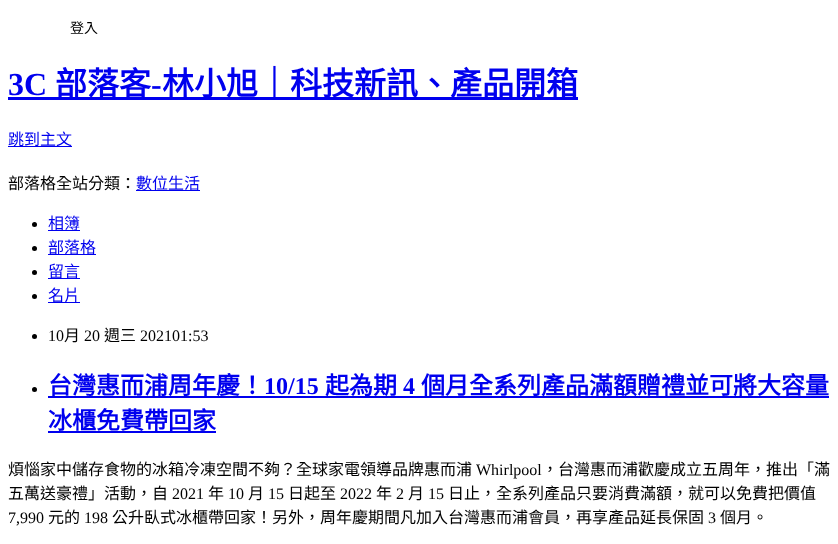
<!DOCTYPE html>
<meta charset="utf-8">
<style>body { margin: 0 } canvas { display: block }</style>
<canvas id="canvas" width="838" height="544"></canvas>
<script type="module">
  const canvas = document.getElementById("canvas");
  const ctx = canvas.getContext("2d");
  ctx.miterLimit = 4;
  ctx.fontKerning = "normal";

  ctx.fillStyle = "#ffffff";
  ctx.fillRect(0, 0, 838, 544);
  ctx.font = "14px Noto Sans CJK TC";
  ctx.fillStyle = "#000000";
  ctx.fillText("登入", 70, 33);
  ctx.font = "bold 32px Liberation Serif";
  ctx.fillStyle = "#0000ee";
  ctx.fillText("3C", 8, 95);
  ctx.fillRect(8, 97, 570, 3);
  ctx.font = "bold 32px Noto Sans CJK TC";
  ctx.fillText("部落客", 55, 95);
  ctx.font = "bold 32px Liberation Serif";
  ctx.fillText("-", 151, 95);
  ctx.font = "bold 32px Noto Sans CJK TC";
  ctx.fillText("林小旭｜科技新訊、產品開箱", 162, 95);
  ctx.fillRect(8, 146, 64, 1);
  ctx.font = "16px Noto Sans CJK TC";
  ctx.fillText("跳到主文", 8, 145);
  ctx.fillStyle = "#000000";
  ctx.fillText("部落格全站分類：", 8, 189);
  ctx.fillStyle = "#0000ee";
  ctx.fillRect(136, 190, 64, 1);
  ctx.fillText("數位生活", 136, 189);
  ctx.fillStyle = "#000000";
  ctx.beginPath();
  ctx.arc(34.5, 224.5, 2.5, 0, Math.PI * 2);
  ctx.fill();
  ctx.fillStyle = "#0000ee";
  ctx.fillRect(48, 230, 32, 1);
  ctx.fillText("相簿", 48, 229);
  ctx.fillStyle = "#000000";
  ctx.beginPath();
  ctx.arc(34.5, 248.5, 2.5, 0, Math.PI * 2);
  ctx.fill();
  ctx.fillStyle = "#0000ee";
  ctx.fillRect(48, 254, 48, 1);
  ctx.fillText("部落格", 48, 253);
  ctx.fillStyle = "#000000";
  ctx.beginPath();
  ctx.arc(34.5, 272.5, 2.5, 0, Math.PI * 2);
  ctx.fill();
  ctx.fillStyle = "#0000ee";
  ctx.fillRect(48, 278, 32, 1);
  ctx.fillText("留言", 48, 277);
  ctx.fillStyle = "#000000";
  ctx.beginPath();
  ctx.arc(34.5, 296.5, 2.5, 0, Math.PI * 2);
  ctx.fill();
  ctx.fillStyle = "#0000ee";
  ctx.fillRect(48, 302, 32, 1);
  ctx.fillText("名片", 48, 301);
  ctx.fillStyle = "#000000";
  ctx.beginPath();
  ctx.arc(34.5, 336.5, 2.5, 0, Math.PI * 2);
  ctx.fill();
  ctx.font = "16px Liberation Serif";
  ctx.fillText("10", 48, 341);
  ctx.font = "16px Noto Sans CJK TC";
  ctx.fillText("月", 64, 341);
  ctx.font = "16px Liberation Serif";
  ctx.fillText("20", 84, 341);
  ctx.font = "16px Noto Sans CJK TC";
  ctx.fillText("週三", 104, 341);
  ctx.font = "16px Liberation Serif";
  ctx.fillText("202101:53", 140, 341);
  ctx.beginPath();
  ctx.arc(34.5, 389.5, 2.5, 0, Math.PI * 2);
  ctx.fill();
  ctx.fillStyle = "#0000ee";
  ctx.fillRect(48, 396, 781, 2);
  ctx.font = "bold 24px Noto Sans CJK TC";
  ctx.fillText("台灣惠而浦周年慶！", 48, 394);
  ctx.font = "bold 24px Liberation Serif";
  ctx.fillText("10/15", 264, 394);
  ctx.font = "bold 24px Noto Sans CJK TC";
  ctx.fillText("起為期", 325, 394);
  ctx.font = "bold 24px Liberation Serif";
  ctx.fillText("4", 403, 394);
  ctx.font = "bold 24px Noto Sans CJK TC";
  ctx.fillText("個月全系列產品滿額贈禮並可將大容量", 421, 394);
  ctx.fillText("冰櫃免費帶回家", 48, 429);
  ctx.fillRect(48, 431, 168, 2);
  ctx.font = "16px Noto Sans CJK TC";
  ctx.fillStyle = "#000000";
  ctx.fillText("煩惱家中儲存食物的冰箱冷凍空間不夠？全球家電領導品牌惠而浦", 8, 475);
  ctx.font = "16px Liberation Serif";
  ctx.fillText("Whirlpool", 476, 475);
  ctx.font = "16px Noto Sans CJK TC";
  ctx.fillText("，台灣惠而浦歡慶成立五周年，推出「滿", 542, 475);
  ctx.fillText("五萬送豪禮」活動，自", 8, 499);
  ctx.font = "16px Liberation Serif";
  ctx.fillText("2021", 172, 499);
  ctx.font = "16px Noto Sans CJK TC";
  ctx.fillText("年", 208, 499);
  ctx.font = "16px Liberation Serif";
  ctx.fillText("10", 228, 499);
  ctx.font = "16px Noto Sans CJK TC";
  ctx.fillText("月", 248, 499);
  ctx.font = "16px Liberation Serif";
  ctx.fillText("15", 268, 499);
  ctx.font = "16px Noto Sans CJK TC";
  ctx.fillText("日起至", 288, 499);
  ctx.font = "16px Liberation Serif";
  ctx.fillText("2022", 340, 499);
  ctx.font = "16px Noto Sans CJK TC";
  ctx.fillText("年", 376, 499);
  ctx.font = "16px Liberation Serif";
  ctx.fillText("2", 396, 499);
  ctx.font = "16px Noto Sans CJK TC";
  ctx.fillText("月", 408, 499);
  ctx.font = "16px Liberation Serif";
  ctx.fillText("15", 428, 499);
  ctx.font = "16px Noto Sans CJK TC";
  ctx.fillText("日止，全系列產品只要消費滿額，就可以免費把價值", 448, 499);
  ctx.font = "16px Liberation Serif";
  ctx.fillText("7,990", 8, 523);
  ctx.font = "16px Noto Sans CJK TC";
  ctx.fillText("元的", 48, 523);
  ctx.font = "16px Liberation Serif";
  ctx.fillText("198", 84, 523);
  ctx.font = "16px Noto Sans CJK TC";
  ctx.fillText("公升臥式冰櫃帶回家！另外，周年慶期間凡加入台灣惠而浦會員，再享產品延長保固", 112, 523);
  ctx.font = "16px Liberation Serif";
  ctx.fillText("3", 708, 523);
  ctx.font = "16px Noto Sans CJK TC";
  ctx.fillText("個月。", 720, 523);
</script>
